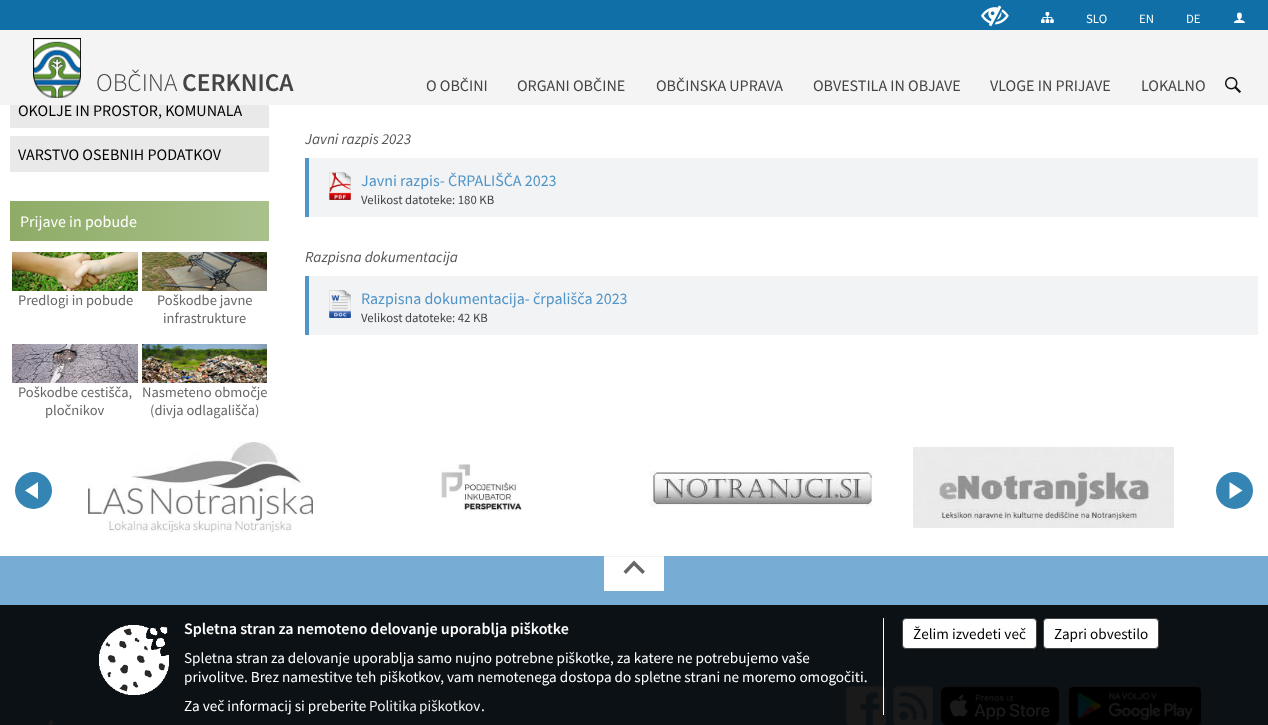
<!DOCTYPE html>
<meta charset="utf-8">
<style>body { margin: 0 } canvas { display: block }</style>
<canvas id="canvas" width="1268" height="725"></canvas>
<script type="module">
  const canvas = document.getElementById("canvas");
  const ctx = canvas.getContext("2d");
  ctx.miterLimit = 4;
  ctx.fontKerning = "normal";
  async function loadImage(src) {
    const img = new Image();
    img.src = src;
    await img.decode();
    return img;
  }
  let gradient;

  ctx.fillStyle = "#ffffff";
  ctx.fillRect(0, 0, 1268, 725);
  ctx.fillStyle = "#f4f4f4";
  ctx.fillRect(0, 30, 1268, 75);
  ctx.fillStyle = "#106fa6";
  ctx.fillRect(0, 0, 1268, 30);
  ctx.drawImage(await loadImage("img1.png"), 981, 5, 28, 22);
  ctx.drawImage(await loadImage("img2.png"), 1041, 12, 13, 11);
  ctx.font = "12.75px Source Sans Pro";
  ctx.fillStyle = "#ffffff";
  ctx.fillText("SLO", 1086, 23);
  ctx.fillText("EN", 1139, 23);
  ctx.fillText("DE", 1186, 23);
  ctx.drawImage(await loadImage("img3.png"), 1233, 12, 12, 11);
  ctx.drawImage(await loadImage("img4.png"), 33, 38, 48, 60);
  ctx.font = "300 25.5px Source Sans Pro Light";
  ctx.fillStyle = "#444444";
  ctx.fillText("OBČINA", 96, 91);
  ctx.font = "600 25.5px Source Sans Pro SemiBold";
  ctx.fillText("CERKNICA", 182, 91);
  ctx.font = "16px Source Sans Pro";
  ctx.fillText("O OBČINI", 426, 91);
  ctx.fillText("ORGANI OBČINE", 517, 91);
  ctx.fillText("OBČINSKA UPRAVA", 656, 91);
  ctx.fillText("OBVESTILA IN OBJAVE", 813, 91);
  ctx.fillText("VLOGE IN PRIJAVE", 990, 91);
  ctx.fillText("LOKALNO", 1141, 91);
  ctx.drawImage(await loadImage("img5.png"), 1225, 77, 16, 16);
  ctx.fillStyle = "#e9e9e9";
  ctx.fillRect(10, 105, 259, 23);
  ctx.fillStyle = "#000000";
  ctx.fillText("OKOLJE IN PROSTOR, KOMUNALA", 18, 116);
  ctx.fillStyle = "#e9e9e9";
  ctx.fillRect(10, 136, 259, 36);
  ctx.fillStyle = "#000000";
  ctx.fillText("VARSTVO OSEBNIH PODATKOV", 18, 160);
  gradient = ctx.createLinearGradient(10, 221, 269, 221);
  gradient.addColorStop(0, "#8eac66");
  gradient.addColorStop(1, "#aac18c");
  ctx.fillStyle = gradient;
  ctx.fillRect(10, 201, 259, 40);
  ctx.fillStyle = "#ffffff";
  ctx.fillText("Prijave in pobude", 20, 227);
  ctx.drawImage(await loadImage("img6.png"), 12, 252, 126, 39);
  ctx.font = "14.5px Source Sans Pro";
  ctx.fillStyle = "#666666";
  ctx.fillText("Predlogi in pobude", 18, 305);
  ctx.drawImage(await loadImage("img7.png"), 142, 252, 125, 39);
  ctx.fillText("Poškodbe javne", 157, 305);
  ctx.fillText("infrastrukture", 163, 323);
  ctx.drawImage(await loadImage("img8.png"), 12, 344, 126, 39);
  ctx.fillText("Poškodbe cestišča,", 18, 397);
  ctx.fillText("pločnikov", 45, 415);
  ctx.drawImage(await loadImage("img9.png"), 142, 344, 125, 39);
  ctx.fillText("Nasmeteno območje", 142, 397);
  ctx.fillText("(divja odlagališča)", 150, 415);
  ctx.font = "italic 15.2px Source Sans Pro";
  ctx.fillStyle = "#555555";
  ctx.fillText("Javni razpis 2023", 305, 144);
  ctx.fillStyle = "#f2f3f5";
  ctx.fillRect(309, 158, 949, 59);
  ctx.fillStyle = "#5094c8";
  ctx.fillRect(305, 158, 4, 59);
  ctx.drawImage(await loadImage("img10.png"), 329, 172, 22, 28);
  ctx.font = "16px Source Sans Pro";
  ctx.fillText("Javni razpis- ČRPALIŠČA 2023", 361, 186);
  ctx.font = "12.75px Source Sans Pro";
  ctx.fillStyle = "#444444";
  ctx.fillText("Velikost datoteke: 180 KB", 361, 204);
  ctx.font = "italic 15.2px Source Sans Pro";
  ctx.fillStyle = "#555555";
  ctx.fillText("Razpisna dokumentacija", 305, 262);
  ctx.fillStyle = "#f2f3f5";
  ctx.fillRect(309, 276, 949, 59);
  ctx.fillStyle = "#5094c8";
  ctx.fillRect(305, 276, 4, 59);
  ctx.drawImage(await loadImage("img11.png"), 329, 290, 22, 28);
  ctx.font = "16px Source Sans Pro";
  ctx.fillText("Razpisna dokumentacija- črpališča 2023", 361, 304);
  ctx.font = "12.75px Source Sans Pro";
  ctx.fillStyle = "#444444";
  ctx.fillText("Velikost datoteke: 42 KB", 361, 322);
  ctx.fillStyle = "#3485b3";
  ctx.beginPath();
  ctx.arc(33.5, 490.5, 18.5, 0, Math.PI * 2);
  ctx.fill();
  ctx.fillStyle = "#ffffff";
  ctx.beginPath();
  ctx.moveTo(38, 499);
  ctx.lineTo(25, 490.5);
  ctx.lineTo(38, 482);
  ctx.closePath();
  ctx.fill();
  ctx.drawImage(await loadImage("img12.png"), 88, 442, 225, 90);
  ctx.drawImage(await loadImage("img13.png"), 441, 464, 81, 47);
  ctx.drawImage(await loadImage("img14.png"), 649, 471, 224, 36);
  ctx.drawImage(await loadImage("img15.png"), 913, 447, 261, 81);
  ctx.fillStyle = "#3485b3";
  ctx.beginPath();
  ctx.arc(1234.5, 490.5, 18.5, 0, Math.PI * 2);
  ctx.fill();
  ctx.fillStyle = "#ffffff";
  ctx.beginPath();
  ctx.moveTo(1229.5, 482);
  ctx.lineTo(1242.5, 490.5);
  ctx.lineTo(1229.5, 499);
  ctx.closePath();
  ctx.fill();
  ctx.fillStyle = "#77acd4";
  ctx.fillRect(0, 556, 1268, 49);
  ctx.fillStyle = "#0c1115";
  ctx.fillRect(0, 605, 1268, 120);
  ctx.fillStyle = "#ffffff";
  ctx.fillRect(604, 557, 60, 34);
  ctx.fillStyle = "#f2f2f2";
  ctx.fillRect(604, 556, 60, 1);
  ctx.fillStyle = "#666666";
  ctx.beginPath();
  ctx.moveTo(626, 574);
  ctx.lineTo(623.5, 571.5);
  ctx.lineTo(634, 560.5);
  ctx.lineTo(645, 571.5);
  ctx.lineTo(642.5, 574);
  ctx.lineTo(634, 565.5);
  ctx.closePath();
  ctx.fill();
  ctx.drawImage(await loadImage("img16.png"), 48, 719, 6, 6);
  ctx.drawImage(await loadImage("img17.png"), 846, 686, 40, 39);
  ctx.drawImage(await loadImage("img18.png"), 893, 686, 40, 39);
  ctx.drawImage(await loadImage("img19.png"), 940, 686, 120, 39);
  ctx.drawImage(await loadImage("img20.png"), 1068, 686, 134, 39);
  ctx.drawImage(await loadImage("img21.png"), 99, 625, 70, 70);
  ctx.fillStyle = "#ffffff";
  ctx.fillRect(883, 618, 1, 97);
  ctx.font = "600 16px Source Sans Pro SemiBold";
  ctx.fillText("Spletna stran za nemoteno delovanje uporablja piškotke", 184, 634);
  ctx.font = "15.2px Source Sans Pro";
  ctx.fillText("Spletna stran za delovanje uporablja samo nujno potrebne piškotke, za katere ne potrebujemo vaše", 184, 663);
  ctx.fillText("privolitve. Brez namestitve teh piškotkov, vam nemotenega dostopa do spletne strani ne moremo omogočiti.", 184, 682);
  ctx.fillText("Za več informacij si preberite", 184, 711);
  ctx.wordSpacing = "-1px";
  ctx.fillStyle = "#eeeeee";
  ctx.fillText("Politika piškotkov", 369, 711);
  ctx.wordSpacing = "0px";
  ctx.fillStyle = "#ffffff";
  ctx.fillText(".", 481, 711);
  ctx.beginPath();
  ctx.roundRect(902.5, 618.5, 134, 30, 3.5);
  ctx.fill();
  ctx.strokeStyle = "#444444";
  ctx.stroke();
  ctx.fillStyle = "#000000";
  ctx.fillText("Želim izvedeti več", 913, 639);
  ctx.fillStyle = "#ffffff";
  ctx.beginPath();
  ctx.roundRect(1043.5, 618.5, 115, 30, 3.5);
  ctx.fill();
  ctx.stroke();
  ctx.fillStyle = "#000000";
  ctx.fillText("Zapri obvestilo", 1054, 639);
</script>
